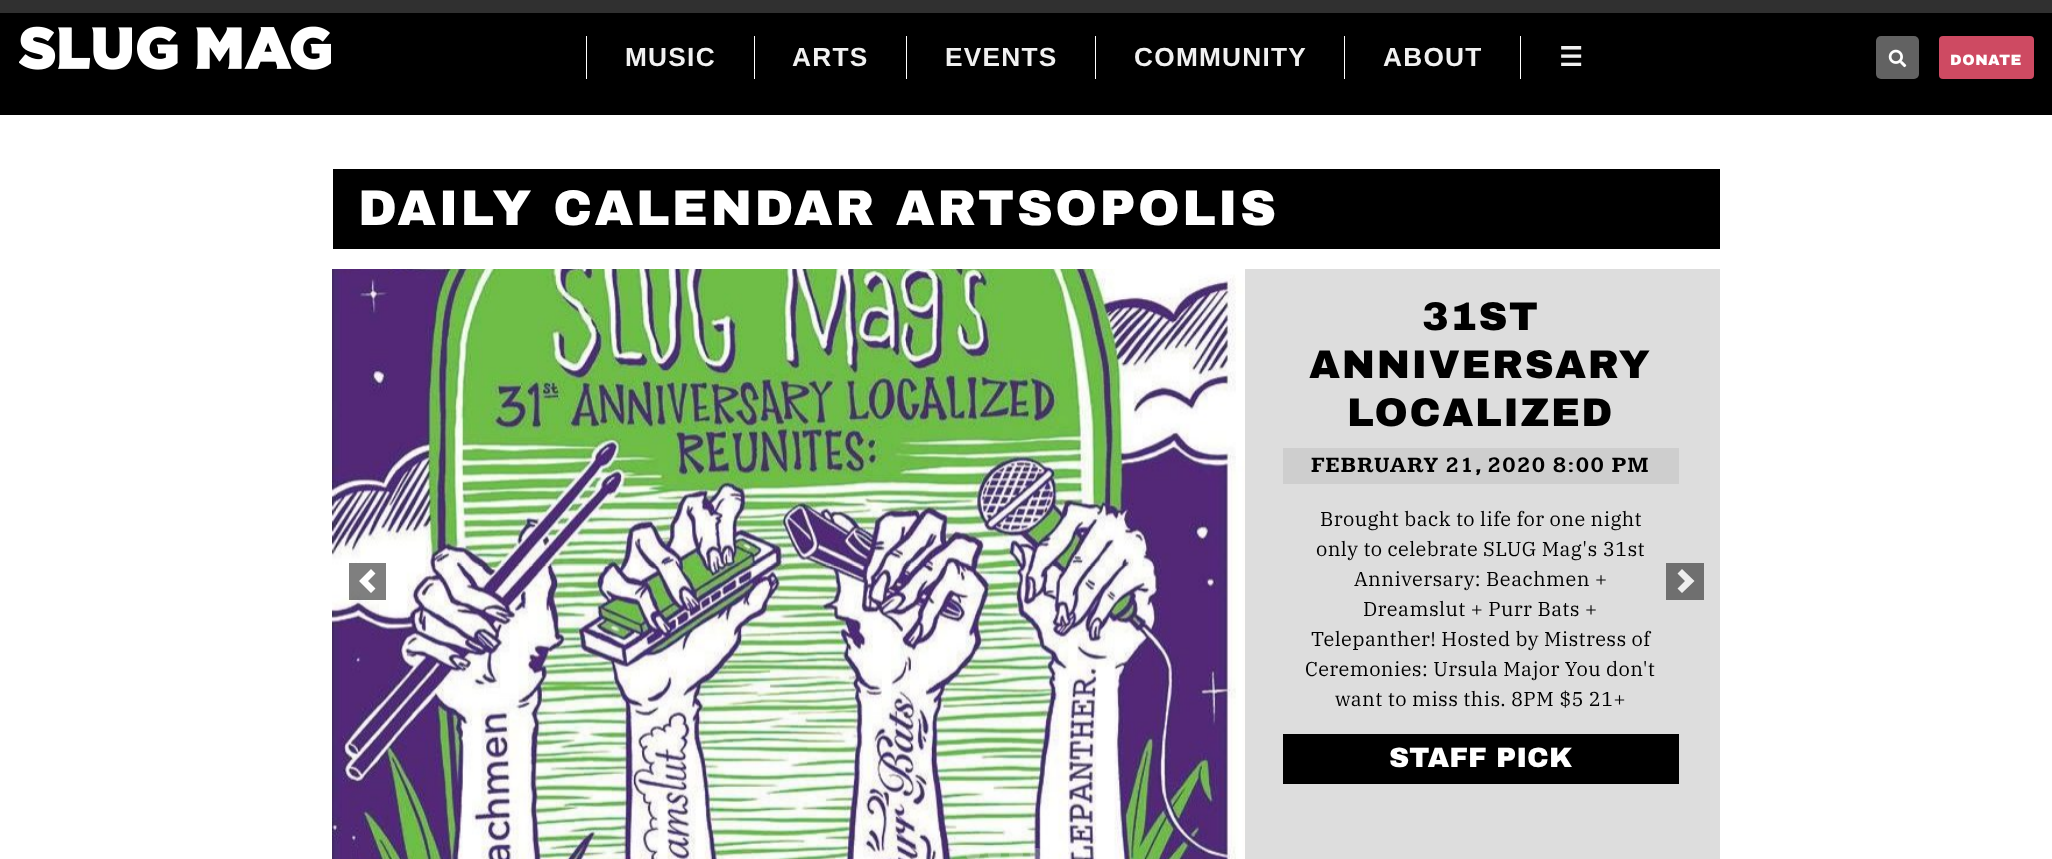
<!DOCTYPE html>
<meta charset="utf-8">
<style>body { margin: 0 } canvas { display: block }</style>
<canvas id="canvas" width="2052" height="859"></canvas>
<script type="module">
  const canvas = document.getElementById("canvas");
  const ctx = canvas.getContext("2d");
  ctx.miterLimit = 4;
  ctx.fontKerning = "normal";
  async function loadImage(src) {
    const img = new Image();
    img.src = src;
    await img.decode();
    return img;
  }

  ctx.fillStyle = "#ffffff";
  ctx.fillRect(0, 0, 2052, 859);
  ctx.fillStyle = "#303030";
  ctx.fillRect(0, 0, 2052, 13);
  ctx.fillStyle = "#000000";
  ctx.fillRect(0, 13, 2052, 102);
  ctx.drawImage(await loadImage("img1.png"), 19, 26, 312, 44);
  ctx.fillStyle = "#ffffff";
  ctx.fillRect(586, 36, 1, 43);
  ctx.letterSpacing = "1.25px";
  ctx.font = "bold 26.25px Liberation Sans";
  ctx.fillStyle = "#f1f1f1";
  ctx.fillText("MUSIC", 625, 66);
  ctx.fillStyle = "#ffffff";
  ctx.fillRect(754, 36, 1, 43);
  ctx.fillStyle = "#f1f1f1";
  ctx.fillText("ARTS", 792, 66);
  ctx.fillStyle = "#ffffff";
  ctx.fillRect(906, 36, 1, 43);
  ctx.fillStyle = "#f1f1f1";
  ctx.fillText("EVENTS", 945, 66);
  ctx.fillStyle = "#ffffff";
  ctx.fillRect(1095, 36, 1, 43);
  ctx.fillStyle = "#f1f1f1";
  ctx.fillText("COMMUNITY", 1134, 66);
  ctx.fillStyle = "#ffffff";
  ctx.fillRect(1344, 36, 1, 43);
  ctx.fillStyle = "#f1f1f1";
  ctx.fillText("ABOUT", 1383, 66);
  ctx.fillStyle = "#ffffff";
  ctx.fillRect(1520, 36, 1, 43);
  ctx.font = "bold 26.25px DejaVu Sans";
  ctx.fillStyle = "#f1f1f1";
  ctx.fillText("☰", 1559, 66);
  ctx.fillStyle = "#626262";
  ctx.beginPath();
  ctx.roundRect(1876, 36, 43, 43, 5);
  ctx.fill();
  ctx.drawImage(await loadImage("img2.png"), 1888, 49, 19, 19);
  ctx.fillStyle = "#ce4a62";
  ctx.beginPath();
  ctx.roundRect(1939, 36, 95, 43, 4);
  ctx.fill();
  ctx.letterSpacing = "0.5px";
  ctx.font = "900 15px Archivo Black";
  ctx.fillStyle = "#ffffff";
  ctx.fillText("DONATE", 1950, 65);
  ctx.fillStyle = "#000000";
  ctx.fillRect(333, 169, 1387, 80);
  ctx.letterSpacing = "2.5px";
  ctx.font = "900 50px Archivo Black";
  ctx.fillStyle = "#ffffff";
  ctx.fillText("DAILY CALENDAR ARTSOPOLIS", 358, 225);
  ctx.fillStyle = "#dddddd";
  ctx.fillRect(1245, 269, 475, 590);
  ctx.drawImage(await loadImage("img3.png"), 332, 269, 913, 590);
  ctx.fillStyle = "rgba(0, 0, 0, 0.5)";
  ctx.fillRect(349, 563, 37, 37);
  ctx.fillStyle = "#ffffff";
  ctx.beginPath();
  ctx.moveTo(371, 569);
  ctx.lineTo(359, 581);
  ctx.lineTo(371, 593);
  ctx.lineTo(375.5, 588.5);
  ctx.lineTo(368, 581);
  ctx.lineTo(375.5, 573.5);
  ctx.closePath();
  ctx.fill();
  ctx.letterSpacing = "1.6px";
  ctx.font = "900 40px Archivo Black";
  ctx.fillStyle = "#000000";
  ctx.fillText("31ST", 1422, 330);
  ctx.fillText("ANNIVERSARY", 1309, 378);
  ctx.fillText("LOCALIZED", 1347, 426);
  ctx.fillStyle = "#cecece";
  ctx.fillRect(1283, 448, 396, 36);
  ctx.letterSpacing = "0.9px";
  ctx.font = "bold 22.5px Kameron";
  ctx.fillStyle = "#000000";
  ctx.fillText("FEBRUARY 21, 2020 8:00 PM", 1311, 472);
  ctx.letterSpacing = "0.4px";
  ctx.font = "20px IBM Plex Serif";
  ctx.fillText("Brought back to life for one night", 1320, 526);
  ctx.fillText("only to celebrate SLUG Mag's 31st", 1316, 556);
  ctx.fillText("Anniversary: Beachmen +", 1354, 586);
  ctx.fillText("Dreamslut + Purr Bats +", 1363, 616);
  ctx.fillText("Telepanther! Hosted by Mistress of", 1311, 646);
  ctx.fillText("Ceremonies: Ursula Major You don't", 1305, 676);
  ctx.fillText("want to miss this. 8PM $5 21+", 1335, 706);
  ctx.fillRect(1283, 734, 396, 50);
  ctx.letterSpacing = "0px";
  ctx.font = "900 28px Archivo Black";
  ctx.fillStyle = "#ffffff";
  ctx.fillText("STAFF PICK", 1389, 767);
  ctx.fillStyle = "#6f6f6f";
  ctx.fillRect(1666, 563, 38, 37);
  ctx.fillStyle = "#eeeeee";
  ctx.beginPath();
  ctx.moveTo(1682, 569);
  ctx.lineTo(1677.5, 573.5);
  ctx.lineTo(1685, 581);
  ctx.lineTo(1677.5, 588.5);
  ctx.lineTo(1682, 593);
  ctx.lineTo(1694.5, 581);
  ctx.closePath();
  ctx.fill();
  ctx.fillStyle = "rgba(255, 255, 255, 0.25)";
  ctx.beginPath();
  ctx.roundRect(966, 848, 14, 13, 6.5);
  ctx.fill();
  ctx.beginPath();
  ctx.arc(994.5, 854.5, 6.5, 0, Math.PI * 2);
  ctx.fill();
  ctx.beginPath();
  ctx.roundRect(1009, 848, 14, 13, 6.5);
  ctx.fill();
  ctx.beginPath();
  ctx.roundRect(1030, 848, 14, 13, 6.5);
  ctx.fill();
  ctx.beginPath();
  ctx.roundRect(1051, 848, 14, 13, 6.5);
  ctx.fill();
  ctx.beginPath();
  ctx.arc(1079.5, 854.5, 6.5, 0, Math.PI * 2);
  ctx.fill();
</script>
